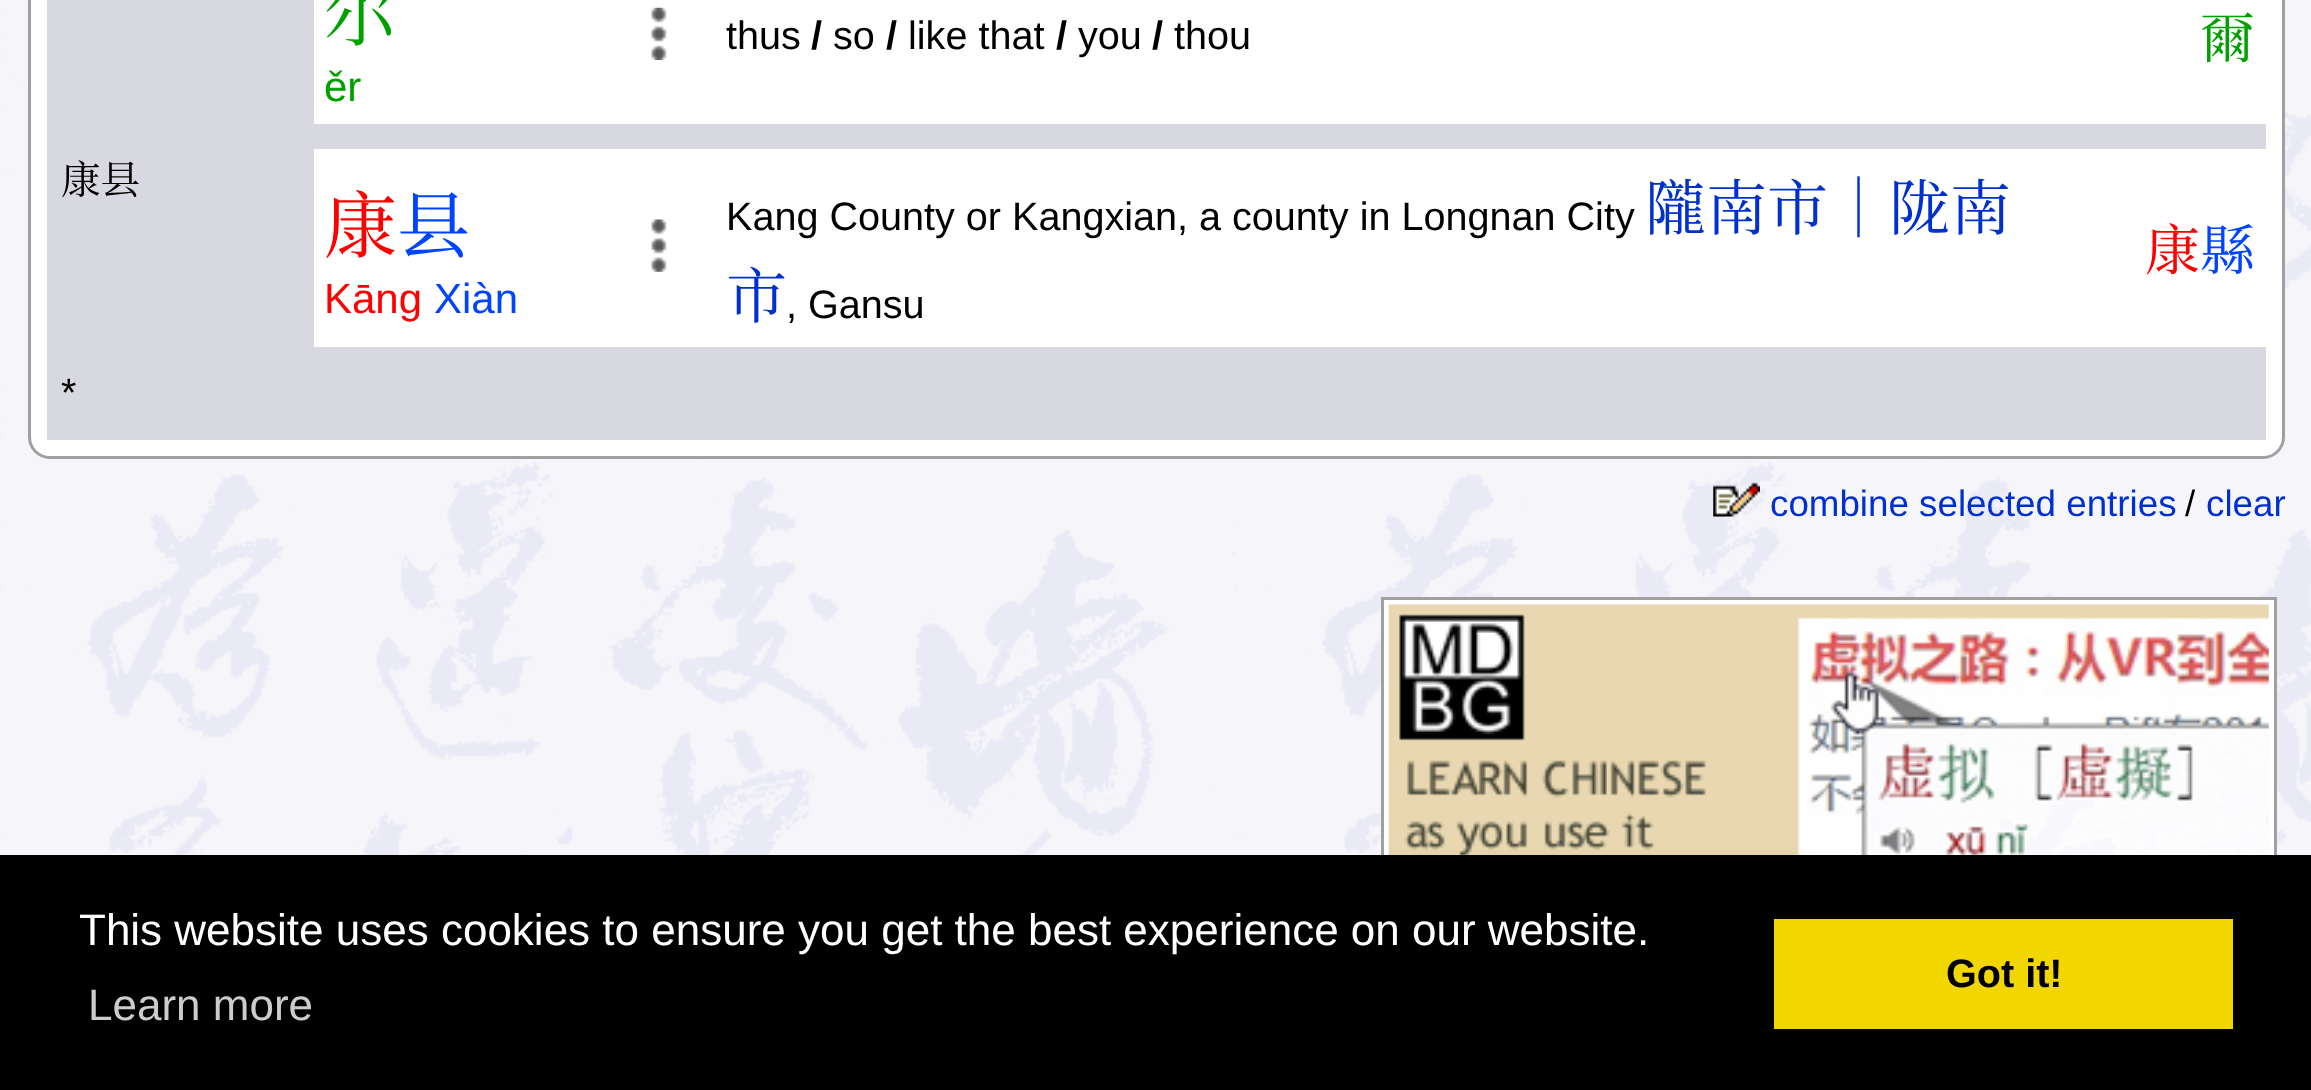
<!DOCTYPE html>
<meta charset="utf-8">
<style>body { margin: 0 } canvas { display: block }</style>
<canvas id="canvas" width="2311" height="1090"></canvas>
<script type="module">
  const canvas = document.getElementById("canvas");
  const ctx = canvas.getContext("2d");
  ctx.miterLimit = 4;
  ctx.fontKerning = "normal";
  async function loadImage(src) {
    const img = new Image();
    img.src = src;
    await img.decode();
    return img;
  }

  ctx.fillStyle = "#ffffff";
  ctx.fillRect(0, 0, 2311, 1090);
  ctx.drawImage(await loadImage("img1.png"), 0, 0, 2311, 855);
  ctx.beginPath();
  ctx.roundRect(29.5, -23.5, 2254, 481, 20.5);
  ctx.fill();
  ctx.strokeStyle = "#a0a0a0";
  ctx.lineWidth = 3;
  ctx.stroke();
  ctx.fillStyle = "#d8d8e0";
  ctx.fillRect(47, 0, 267, 124);
  ctx.font = "73px Noto Serif CJK SC";
  ctx.fillStyle = "#00a000";
  ctx.fillText("尔", 324, 40);
  ctx.font = "42px Liberation Sans";
  ctx.fillText("ěr", 324, 101);
  ctx.drawImage(await loadImage("img2.png"), 651, 7, 16, 53);
  ctx.font = "39.6px Liberation Sans";
  ctx.fillStyle = "#000000";
  ctx.fillText("thus", 726, 49);
  ctx.font = "bold 39.6px Liberation Sans";
  ctx.fillText("/", 811, 49);
  ctx.font = "39.6px Liberation Sans";
  ctx.fillText("so", 833, 49);
  ctx.font = "bold 39.6px Liberation Sans";
  ctx.fillText("/", 886, 49);
  ctx.font = "39.6px Liberation Sans";
  ctx.fillText("like that", 908, 49);
  ctx.font = "bold 39.6px Liberation Sans";
  ctx.fillText("/", 1056, 49);
  ctx.font = "39.6px Liberation Sans";
  ctx.fillText("you", 1078, 49);
  ctx.font = "bold 39.6px Liberation Sans";
  ctx.fillText("/", 1152, 49);
  ctx.font = "39.6px Liberation Sans";
  ctx.fillText("thou", 1174, 49);
  ctx.font = "55px Noto Serif CJK SC";
  ctx.fillStyle = "#00a000";
  ctx.fillText("爾", 2200, 58);
  ctx.fillStyle = "#d8d8e0";
  ctx.fillRect(47, 124, 2219, 25);
  ctx.fillRect(47, 149, 267, 198);
  ctx.font = "39.6px Noto Serif CJK SC";
  ctx.fillStyle = "#000000";
  ctx.fillText("康县", 61, 194);
  ctx.font = "73px Noto Serif CJK SC";
  ctx.fillStyle = "#ff0000";
  ctx.fillText("康", 324, 252);
  ctx.fillStyle = "#0044ff";
  ctx.fillText("县", 397, 252);
  ctx.font = "42px Liberation Sans";
  ctx.fillStyle = "#ff0000";
  ctx.fillText("Kāng", 324, 313);
  ctx.fillStyle = "#0044ff";
  ctx.fillText("Xiàn", 434, 313);
  ctx.drawImage(await loadImage("img3.png"), 651, 219, 16, 53);
  ctx.font = "39.6px Liberation Sans";
  ctx.fillStyle = "#000000";
  ctx.fillText("Kang County or Kangxian, a county in Longnan City", 726, 230);
  ctx.font = "61px Noto Serif CJK SC";
  ctx.fillStyle = "#0030d0";
  ctx.fillText("隴南市｜陇南", 1645, 230);
  ctx.fillText("市", 726, 318);
  ctx.font = "39.6px Liberation Sans";
  ctx.fillStyle = "#000000";
  ctx.fillText(", Gansu", 786, 318);
  ctx.font = "55px Noto Serif CJK SC";
  ctx.fillStyle = "#ff0000";
  ctx.fillText("康", 2145, 270);
  ctx.fillStyle = "#0044ff";
  ctx.fillText("縣", 2200, 270);
  ctx.fillStyle = "#d8d8e0";
  ctx.fillRect(47, 347, 2219, 93);
  ctx.font = "39.6px Liberation Sans";
  ctx.fillStyle = "#000000";
  ctx.fillText("*", 61, 406);
  ctx.drawImage(await loadImage("img4.png"), 1713, 482, 47, 35);
  ctx.font = "36.75px Liberation Sans";
  ctx.fillStyle = "#0030d0";
  ctx.fillText("combine selected entries", 1770, 516);
  ctx.fillStyle = "#000000";
  ctx.fillText("/", 2185, 516);
  ctx.fillStyle = "#0030d0";
  ctx.fillText("clear", 2206, 516);
  ctx.fillStyle = "#ffffff";
  ctx.fillRect(1384, 600, 890, 255);
  ctx.strokeRect(1382.5, 598.5, 893, 404);
  ctx.drawImage(await loadImage("img5.png"), 1388, 604, 881, 251);
  ctx.fillStyle = "#000000";
  ctx.fillRect(0, 855, 2311, 235);
  ctx.font = "44px Liberation Sans";
  ctx.fillStyle = "#ffffff";
  ctx.fillText("This website uses cookies to ensure you get the best experience on our website.", 79, 945);
  ctx.fillStyle = "#cccccc";
  ctx.fillText("Learn more", 88, 1020);
  ctx.fillStyle = "#f1d600";
  ctx.fillRect(1774, 919, 459, 110);
  ctx.font = "bold 39.6px Liberation Sans";
  ctx.fillStyle = "#000000";
  ctx.fillText("Got it!", 1946, 987);
</script>
